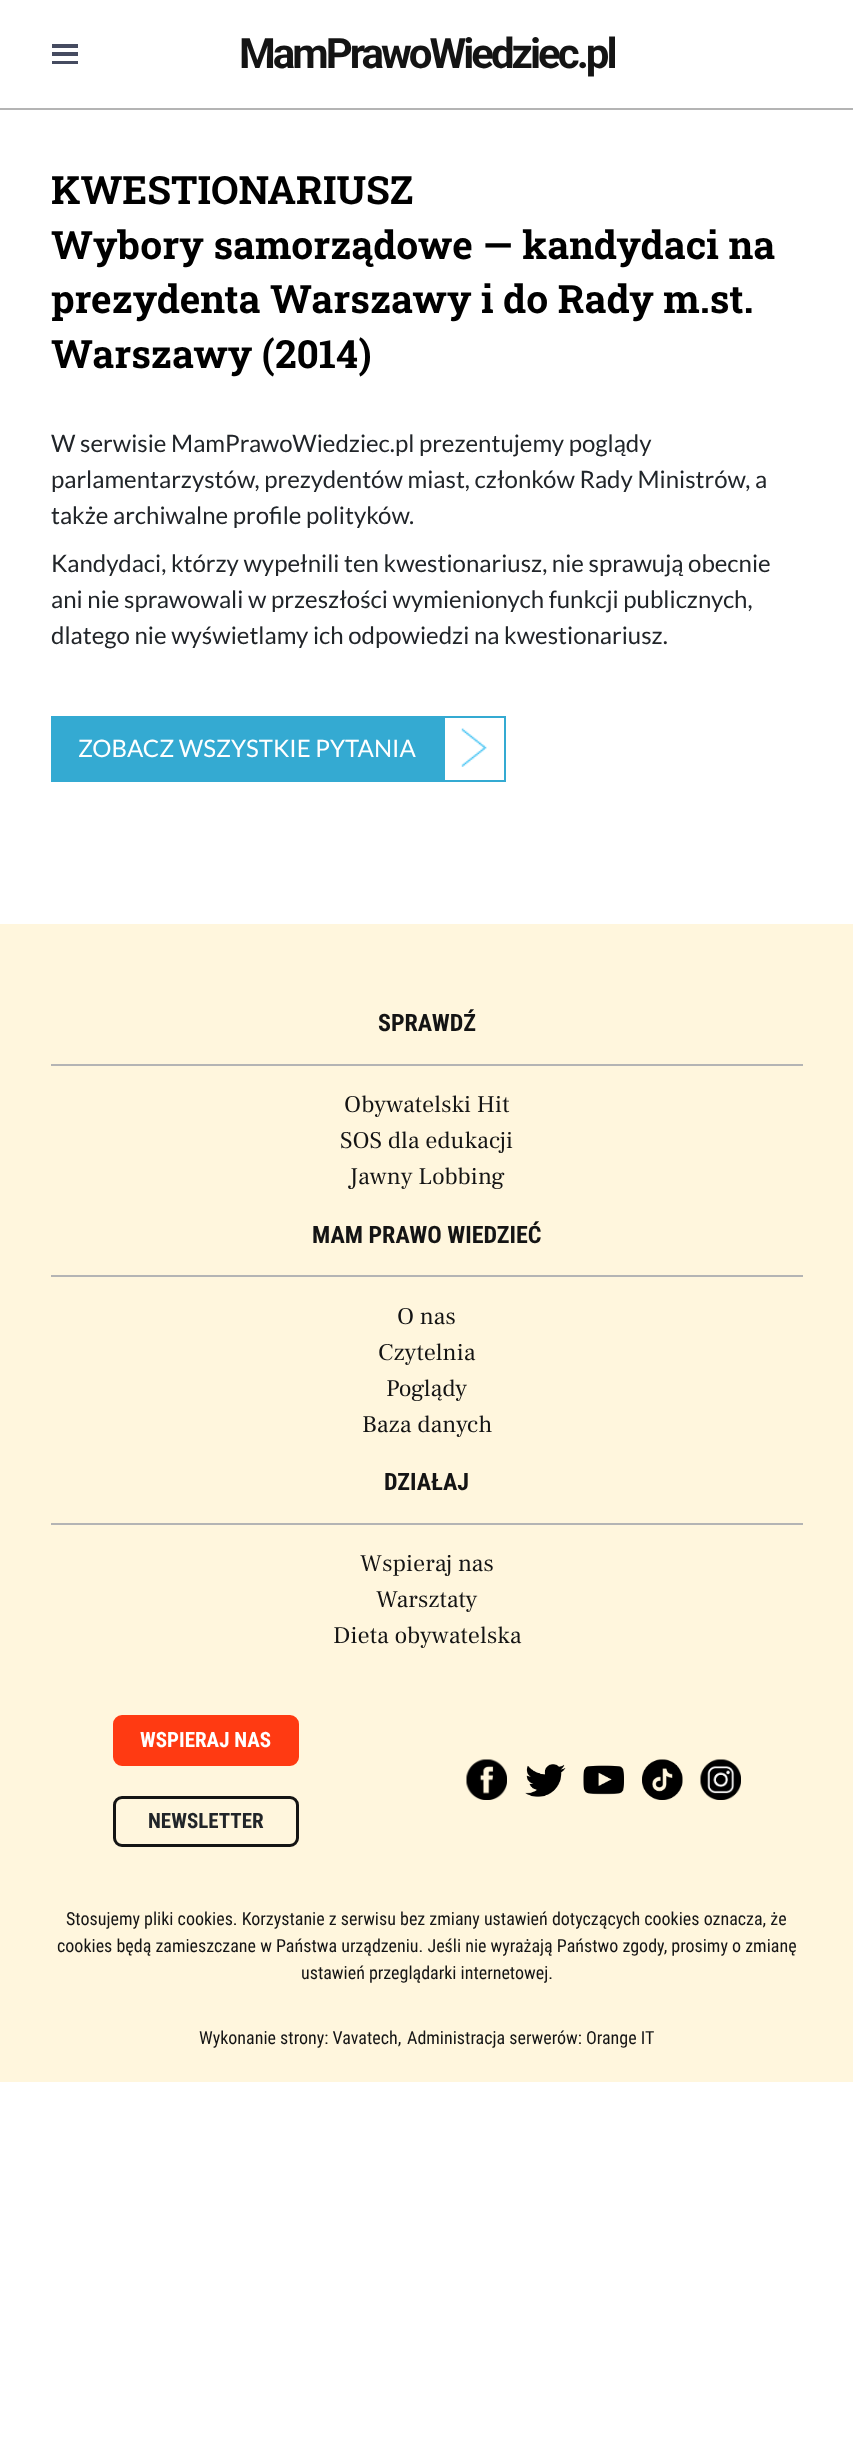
<!DOCTYPE html>
<meta charset="utf-8">
<style>body { margin: 0 } canvas { display: block }</style>
<canvas id="canvas" width="853" height="2459"></canvas>
<script type="module">
  const canvas = document.getElementById("canvas");
  const ctx = canvas.getContext("2d");
  ctx.miterLimit = 4;
  ctx.fontKerning = "normal";
  async function loadImage(src) {
    const img = new Image();
    img.src = src;
    await img.decode();
    return img;
  }

  ctx.fillStyle = "#ffffff";
  ctx.fillRect(0, 0, 853, 2459);
  ctx.fillStyle = "#b4b4b4";
  ctx.fillRect(0, 108, 853, 2);
  ctx.fillStyle = "#454b60";
  ctx.fillRect(52, 44, 26, 4);
  ctx.fillRect(52, 52, 26, 4);
  ctx.fillRect(52, 61, 26, 3);
  ctx.letterSpacing = "-3px";
  ctx.font = "bold 42px Roboto";
  ctx.fillStyle = "#141414";
  ctx.fillText("MamPrawoWiedziec.pl", 239, 68);
  ctx.letterSpacing = "0px";
  ctx.font = "bold 39px Roboto Slab";
  ctx.fillStyle = "#000000";
  ctx.fillText("KWESTIONARIUSZ", 51, 204);
  ctx.fillText("Wybory samorządowe — kandydaci na", 51, 259);
  ctx.fillText("prezydenta Warszawy i do Rady m.st.", 51, 313);
  ctx.fillText("Warszawy (2014)", 51, 368);
  ctx.font = "24px Lato";
  ctx.fillStyle = "#212529";
  ctx.fillText("W serwisie MamPrawoWiedziec.pl prezentujemy poglądy", 51, 452);
  ctx.fillText("parlamentarzystów, prezydentów miast, członków Rady Ministrów, a", 51, 488);
  ctx.fillText("także archiwalne profile polityków.", 51, 524);
  ctx.fillText("Kandydaci, którzy wypełnili ten kwestionariusz, nie sprawują obecnie", 51, 572);
  ctx.fillText("ani nie sprawowali w przeszłości wymienionych funkcji publicznych,", 51, 608);
  ctx.fillText("dlatego nie wyświetlamy ich odpowiedzi na kwestionariusz.", 51, 644);
  ctx.fillStyle = "#34aad2";
  ctx.fillRect(51, 716, 392, 66);
  ctx.fillStyle = "#ffffff";
  ctx.fillText("ZOBACZ WSZYSTKIE PYTANIA", 78, 757);
  ctx.drawImage(await loadImage("img1.png"), 461, 728, 26, 39);
  ctx.strokeStyle = "#34aad2";
  ctx.lineWidth = 2;
  ctx.strokeRect(444, 717, 61, 64);
  ctx.fillStyle = "#fff6dd";
  ctx.fillRect(0, 924, 853, 1158);
  ctx.fillStyle = "#b4b4b4";
  ctx.fillRect(51, 1064, 752, 2);
  ctx.font = "bold 24px Roboto Condensed";
  ctx.fillStyle = "#141414";
  ctx.fillText("SPRAWDŹ", 378, 1031);
  ctx.font = "24px Frank Ruhl Libre";
  ctx.fillText("Obywatelski Hit", 344, 1112);
  ctx.fillText("SOS dla edukacji", 340, 1148);
  ctx.fillText("Jawny Lobbing", 349, 1184);
  ctx.fillStyle = "#b4b4b4";
  ctx.fillRect(51, 1275, 752, 2);
  ctx.font = "bold 24px Roboto Condensed";
  ctx.fillStyle = "#141414";
  ctx.fillText("MAM PRAWO WIEDZIEĆ", 312, 1243);
  ctx.font = "24px Frank Ruhl Libre";
  ctx.fillText("O nas", 397, 1324);
  ctx.fillText("Czytelnia", 378, 1360);
  ctx.fillText("Poglądy", 386, 1396);
  ctx.fillText("Baza danych", 362, 1432);
  ctx.fillStyle = "#b4b4b4";
  ctx.fillRect(51, 1523, 752, 2);
  ctx.font = "bold 24px Roboto Condensed";
  ctx.fillStyle = "#141414";
  ctx.fillText("DZIAŁAJ", 384, 1490);
  ctx.font = "24px Frank Ruhl Libre";
  ctx.fillText("Wspieraj nas", 360, 1571);
  ctx.fillText("Warsztaty", 376, 1607);
  ctx.fillText("Dieta obywatelska", 333, 1643);
  ctx.fillStyle = "#ff3a12";
  ctx.beginPath();
  ctx.roundRect(114.5, 1716.5, 183, 48, 7.5);
  ctx.fill();
  ctx.strokeStyle = "#ff3a12";
  ctx.lineWidth = 3;
  ctx.stroke();
  ctx.font = "bold 21px Roboto Condensed";
  ctx.fillStyle = "#ffffff";
  ctx.fillText("WSPIERAJ NAS", 140, 1747);
  ctx.beginPath();
  ctx.roundRect(114.5, 1797.5, 183, 48, 7.5);
  ctx.strokeStyle = "#141414";
  ctx.stroke();
  ctx.fillStyle = "#212529";
  ctx.fillText("NEWSLETTER", 148, 1828);
  ctx.drawImage(await loadImage("img2.png"), 466, 1759, 41, 41);
  ctx.drawImage(await loadImage("img3.png"), 525, 1764, 41, 33);
  ctx.drawImage(await loadImage("img4.png"), 583, 1765, 41, 30);
  ctx.drawImage(await loadImage("img5.png"), 642, 1759, 41, 41);
  ctx.drawImage(await loadImage("img6.png"), 700, 1759, 41, 41);
  ctx.font = "18px Roboto Condensed";
  ctx.fillStyle = "#141414";
  ctx.fillText("Stosujemy pliki cookies. Korzystanie z serwisu bez zmiany ustawień dotyczących cookies oznacza, że", 66, 1925);
  ctx.fillText("cookies będą zamieszczane w Państwa urządzeniu. Jeśli nie wyrażają Państwo zgody, prosimy o zmianę", 57, 1952);
  ctx.fillText("ustawień przeglądarki internetowej.", 301, 1979);
  ctx.fillText("Wykonanie strony: Vavatech,", 199, 2044);
  ctx.fillText("Administracja serwerów: Orange IT", 407, 2044);
</script>
